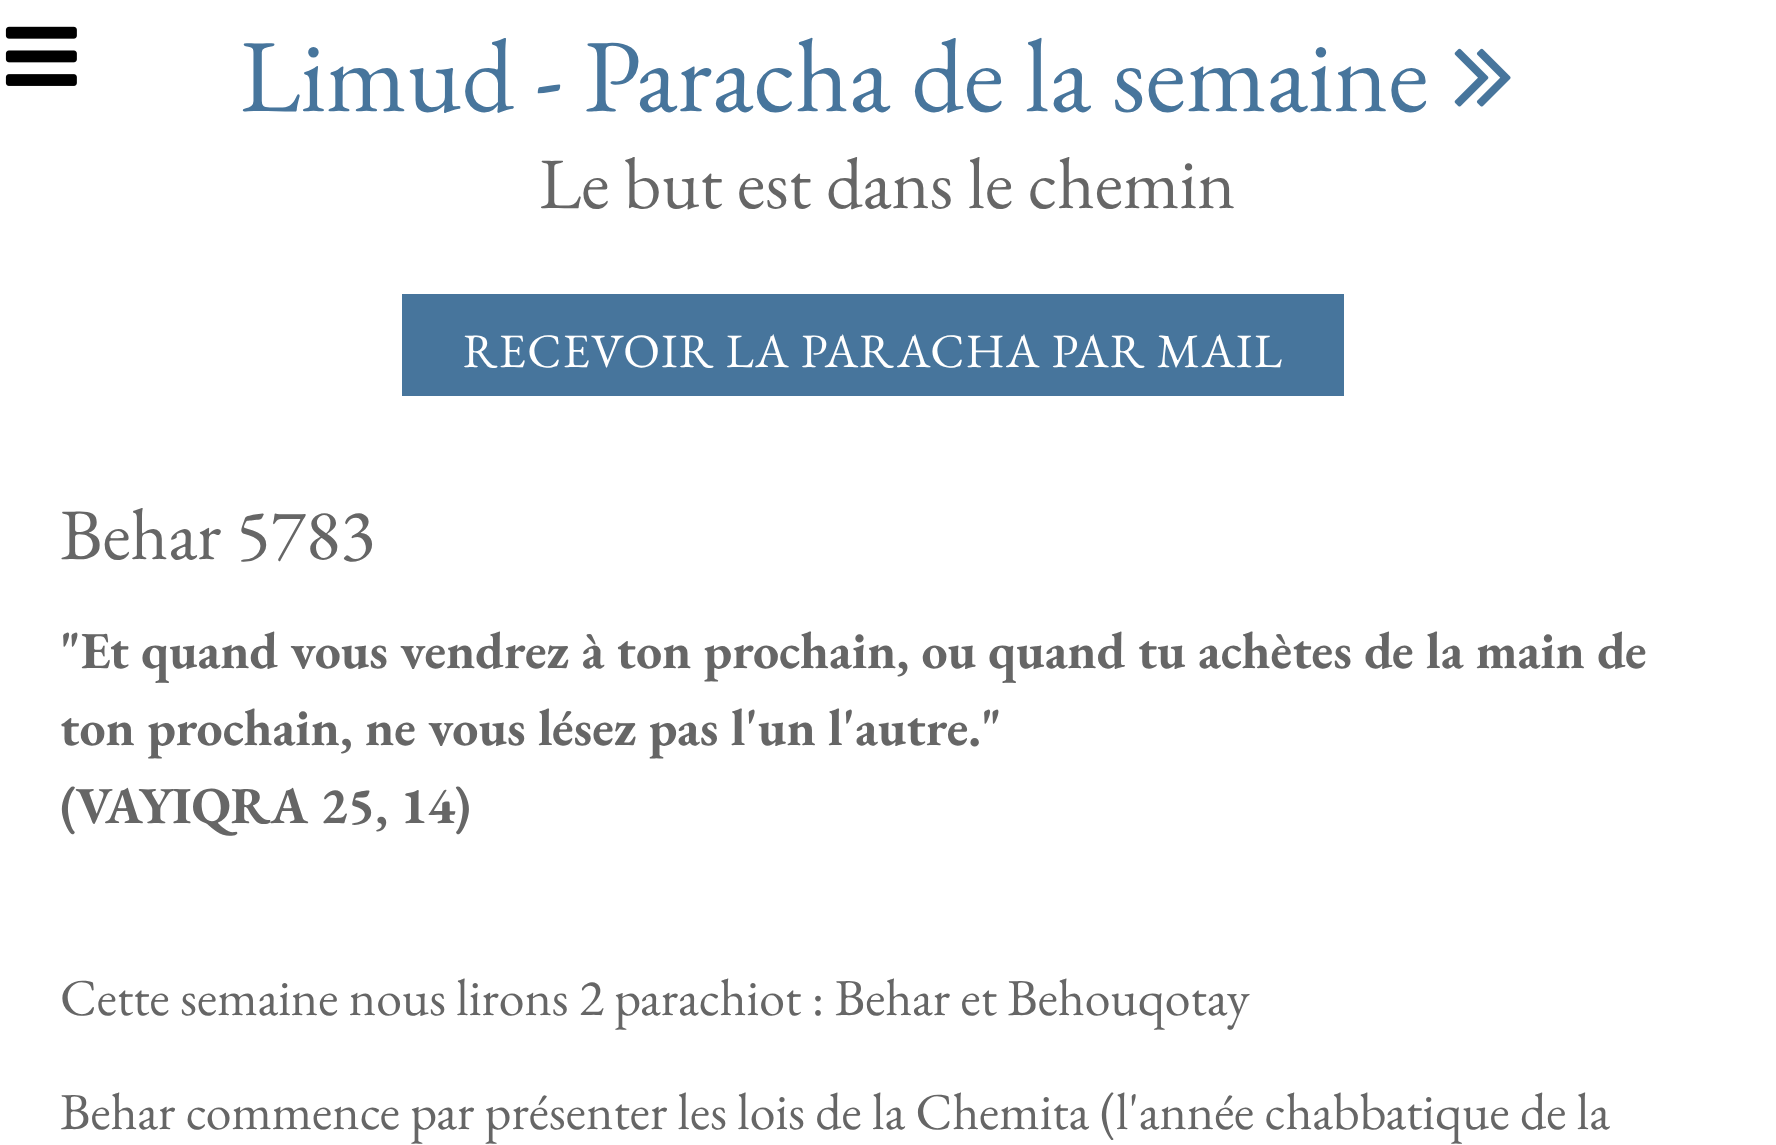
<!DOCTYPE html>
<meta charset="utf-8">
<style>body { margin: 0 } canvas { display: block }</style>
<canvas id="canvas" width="1776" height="1145"></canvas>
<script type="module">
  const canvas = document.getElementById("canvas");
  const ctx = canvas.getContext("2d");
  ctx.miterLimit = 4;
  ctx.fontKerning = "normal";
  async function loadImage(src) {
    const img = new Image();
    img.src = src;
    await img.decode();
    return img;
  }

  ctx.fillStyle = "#ffffff";
  ctx.fillRect(0, 0, 1776, 1145);
  ctx.drawImage(await loadImage("img1.png"), 5, 26, 72, 60);
  ctx.font = "103.75px EB Garamond";
  ctx.fillStyle = "#47759c";
  ctx.fillText("Limud - Paracha de la semaine", 240, 111);
  ctx.drawImage(await loadImage("img2.png"), 1454, 48, 57, 59);
  ctx.font = "72.5px EB Garamond";
  ctx.fillStyle = "#666666";
  ctx.fillText("Le but est dans le chemin", 539, 208);
  ctx.fillStyle = "#47759c";
  ctx.fillRect(402, 294, 942, 102);
  ctx.letterSpacing = "1.45px";
  ctx.font = "48px EB Garamond";
  ctx.fillStyle = "#ffffff";
  ctx.fillText("RECEVOIR LA PARACHA PAR MAIL", 463, 367);
  ctx.letterSpacing = "0px";
  ctx.font = "72.5px EB Garamond";
  ctx.fillStyle = "#666666";
  ctx.fillText("Behar 5783", 60, 559);
  ctx.font = "bold 51.85px EB Garamond";
  ctx.fillText("\"Et quand vous vendrez à ton prochain, ou quand tu achètes de la main de", 60, 668);
  ctx.fillText("ton prochain, ne vous lésez pas l'un l'autre.\"", 60, 745);
  ctx.fillText("(VAYIQRA 25, 14)", 60, 823);
  ctx.font = "51.85px EB Garamond";
  ctx.fillText("Cette semaine nous lirons 2 parachiot : Behar et Behouqotay", 60, 1015);
  ctx.fillText("Behar commence par présenter les lois de la Chemita (l'année chabbatique de la", 60, 1129);
</script>
